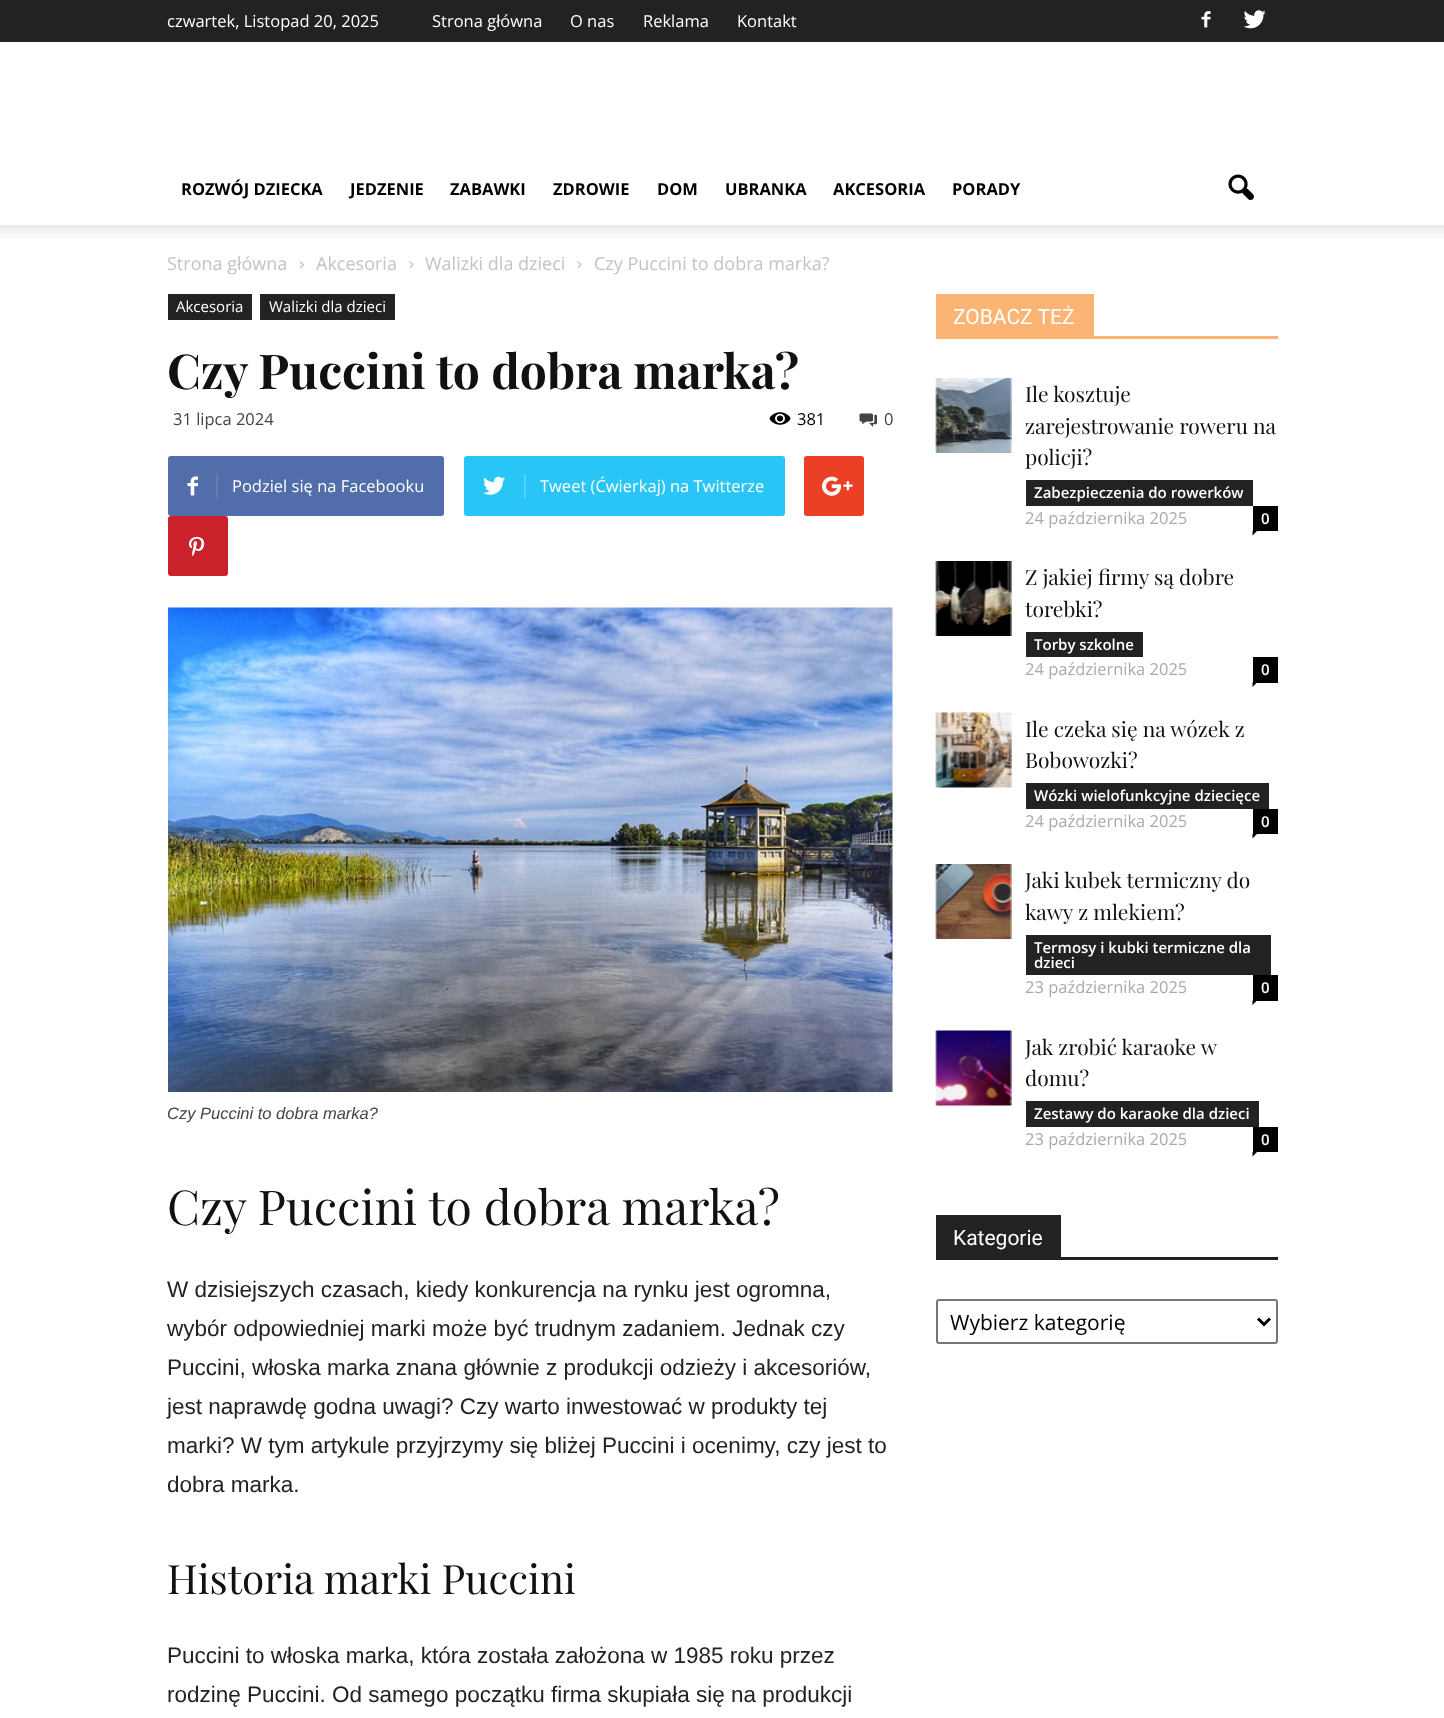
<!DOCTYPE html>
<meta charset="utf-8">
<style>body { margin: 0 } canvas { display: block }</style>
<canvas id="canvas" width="1444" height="1718"></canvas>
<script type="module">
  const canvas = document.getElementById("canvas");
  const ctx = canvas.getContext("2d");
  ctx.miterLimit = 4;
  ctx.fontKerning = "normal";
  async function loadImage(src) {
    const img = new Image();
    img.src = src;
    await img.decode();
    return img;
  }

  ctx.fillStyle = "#ffffff";
  ctx.fillRect(0, 0, 1444, 1718);
  ctx.fillStyle = "#222222";
  ctx.fillRect(0, 0, 1444, 42);
  ctx.font = "16.5px Open Sans";
  ctx.fillStyle = "#ffffff";
  ctx.fillText("czwartek, Listopad 20, 2025", 167, 27);
  ctx.fillText("Strona główna", 432, 27);
  ctx.fillText("O nas", 570, 27);
  ctx.fillText("Reklama", 643, 27);
  ctx.fillText("Kontakt", 737, 27);
  ctx.drawImage(await loadImage("img1.png"), 1201, 11, 10, 17);
  ctx.drawImage(await loadImage("img2.png"), 1243, 10, 23, 19);
  ctx.font = "bold 16.5px Open Sans";
  ctx.fillStyle = "#000000";
  ctx.fillText("ROZWÓJ DZIECKA", 181, 195);
  ctx.fillText("JEDZENIE", 350, 195);
  ctx.fillText("ZABAWKI", 450, 195);
  ctx.fillText("ZDROWIE", 553, 195);
  ctx.fillText("DOM", 657, 195);
  ctx.fillText("UBRANKA", 725, 195);
  ctx.fillText("AKCESORIA", 833, 195);
  ctx.fillText("PORADY", 952, 195);
  ctx.drawImage(await loadImage("img3.png"), 1228, 174, 26, 26);
  ctx.drawImage(await loadImage("img4.png"), 0, 225, 1444, 13);
  ctx.font = "18px Open Sans";
  ctx.fillStyle = "#c3c3c3";
  ctx.fillText("Strona główna", 167, 270);
  ctx.drawImage(await loadImage("img5.png"), 300, 261, 4, 8);
  ctx.fillText("Akcesoria", 316, 270);
  ctx.drawImage(await loadImage("img6.png"), 409, 261, 5, 8);
  ctx.fillText("Walizki dla dzieci", 425, 270);
  ctx.drawImage(await loadImage("img6.png"), 577, 261, 5, 8);
  ctx.fillText("Czy Puccini to dobra marka?", 594, 270);
  ctx.fillStyle = "#222222";
  ctx.fillRect(168, 294, 84, 26);
  ctx.font = "15px Open Sans";
  ctx.fillStyle = "#ffffff";
  ctx.fillText("Akcesoria", 176, 312);
  ctx.fillStyle = "#222222";
  ctx.fillRect(260, 294, 135, 26);
  ctx.fillStyle = "#ffffff";
  ctx.fillText("Walizki dla dzieci", 269, 312);
  ctx.font = "bold 48px Playfair Display";
  ctx.fillStyle = "#111111";
  ctx.fillText("Czy Puccini to dobra marka?", 167, 389);
  ctx.font = "16.5px Open Sans";
  ctx.fillStyle = "#444444";
  ctx.fillText("31 lipca 2024", 173, 425);
  ctx.drawImage(await loadImage("img7.png"), 769, 412, 22, 13);
  ctx.fillStyle = "#000000";
  ctx.fillText("381", 797, 425);
  ctx.drawImage(await loadImage("img8.png"), 859, 413, 19, 14);
  ctx.fillStyle = "#444444";
  ctx.fillText("0", 884, 425);
  ctx.fillStyle = "#516eab";
  ctx.beginPath();
  ctx.roundRect(168, 456, 276, 60, 3);
  ctx.fill();
  ctx.drawImage(await loadImage("img9.png"), 187, 476, 11, 20);
  ctx.fillStyle = "#627db3";
  ctx.fillRect(216, 474, 2, 24);
  ctx.fillStyle = "#ffffff";
  ctx.fillText("Podziel się na Facebooku", 232, 492);
  ctx.fillStyle = "#29c5f6";
  ctx.beginPath();
  ctx.roundRect(464, 456, 321, 60, 3);
  ctx.fill();
  ctx.drawImage(await loadImage("img10.png"), 483, 476, 22, 19);
  ctx.fillStyle = "#54d1f8";
  ctx.fillRect(524, 474, 2, 24);
  ctx.fillStyle = "#ffffff";
  ctx.fillText("Tweet (Ćwierkaj) na Twitterze", 540, 492);
  ctx.fillStyle = "#eb4026";
  ctx.beginPath();
  ctx.roundRect(804, 456, 60, 60, 3);
  ctx.fill();
  ctx.drawImage(await loadImage("img11.png"), 822, 476, 31, 20);
  ctx.fillStyle = "#ca212a";
  ctx.beginPath();
  ctx.roundRect(168, 516, 60, 60, 3);
  ctx.fill();
  ctx.drawImage(await loadImage("img12.png"), 189, 536, 16, 21);
  ctx.drawImage(await loadImage("img13.png"), 168, 607, 725, 485);
  ctx.font = "italic 16.5px Liberation Sans";
  ctx.fillStyle = "#444444";
  ctx.fillText("Czy Puccini to dobra marka?", 167, 1119);
  ctx.font = "48px Playfair Display";
  ctx.fillStyle = "#111111";
  ctx.fillText("Czy Puccini to dobra marka?", 167, 1225);
  ctx.font = "22.5px Liberation Sans";
  ctx.fillStyle = "#222222";
  ctx.fillText("W dzisiejszych czasach, kiedy konkurencja na rynku jest ogromna,", 167, 1297);
  ctx.fillText("wybór odpowiedniej marki może być trudnym zadaniem. Jednak czy", 167, 1336);
  ctx.fillText("Puccini, włoska marka znana głównie z produkcji odzieży i akcesoriów,", 167, 1375);
  ctx.fillText("jest naprawdę godna uwagi? Czy warto inwestować w produkty tej", 167, 1414);
  ctx.fillText("marki? W tym artykule przyjrzymy się bliżej Puccini i ocenimy, czy jest to", 167, 1453);
  ctx.fillText("dobra marka.", 167, 1492);
  ctx.font = "40.5px Playfair Display";
  ctx.fillStyle = "#111111";
  ctx.fillText("Historia marki Puccini", 167, 1594);
  ctx.font = "22.5px Liberation Sans";
  ctx.fillStyle = "#222222";
  ctx.fillText("Puccini to włoska marka, która została założona w 1985 roku przez", 167, 1663);
  ctx.fillText("rodzinę Puccini. Od samego początku firma skupiała się na produkcji", 167, 1702);
  ctx.fillStyle = "#fbb474";
  ctx.fillRect(936, 336, 342, 3);
  ctx.fillRect(936, 294, 158, 42);
  ctx.font = "21px Roboto";
  ctx.fillStyle = "#ffffff";
  ctx.fillText("ZOBACZ TEŻ", 953, 324);
  ctx.drawImage(await loadImage("img14.png"), 935, 378, 77, 75);
  ctx.font = "21px Playfair Display";
  ctx.fillStyle = "#111111";
  ctx.fillText("Ile kosztuje", 1025, 402);
  ctx.fillText("zarejestrowanie roweru na", 1025, 434);
  ctx.fillText("policji?", 1025, 465);
  ctx.fillStyle = "#222222";
  ctx.fillRect(1026, 480, 227, 26);
  ctx.font = "600 15px Open Sans";
  ctx.fillStyle = "#ffffff";
  ctx.fillText("Zabezpieczenia do rowerków", 1034, 498);
  ctx.font = "16.5px Open Sans";
  ctx.fillStyle = "#aaaaaa";
  ctx.fillText("24 października 2025", 1025, 524);
  ctx.fillStyle = "#000000";
  ctx.fillRect(1253, 506, 25, 25);
  ctx.font = "600 15px Open Sans";
  ctx.fillStyle = "#ffffff";
  ctx.fillText("0", 1261, 524);
  ctx.fillStyle = "#000000";
  ctx.beginPath();
  ctx.moveTo(1252.5, 531);
  ctx.lineTo(1257, 531);
  ctx.lineTo(1252.5, 535.5);
  ctx.closePath();
  ctx.fill();
  ctx.drawImage(await loadImage("img15.png"), 935, 561, 77, 75);
  ctx.font = "21px Playfair Display";
  ctx.fillStyle = "#111111";
  ctx.fillText("Z jakiej firmy są dobre", 1025, 585);
  ctx.fillText("torebki?", 1025, 617);
  ctx.fillStyle = "#222222";
  ctx.fillRect(1026, 632, 117, 25);
  ctx.font = "600 15px Open Sans";
  ctx.fillStyle = "#ffffff";
  ctx.fillText("Torby szkolne", 1034, 650);
  ctx.font = "16.5px Open Sans";
  ctx.fillStyle = "#aaaaaa";
  ctx.fillText("24 października 2025", 1025, 675);
  ctx.fillStyle = "#000000";
  ctx.fillRect(1253, 657, 25, 26);
  ctx.font = "600 15px Open Sans";
  ctx.fillStyle = "#ffffff";
  ctx.fillText("0", 1261, 675);
  ctx.fillStyle = "#000000";
  ctx.beginPath();
  ctx.moveTo(1252.5, 682.5);
  ctx.lineTo(1257, 682.5);
  ctx.lineTo(1252.5, 687);
  ctx.closePath();
  ctx.fill();
  ctx.drawImage(await loadImage("img16.png"), 935, 712, 77, 76);
  ctx.font = "21px Playfair Display";
  ctx.fillStyle = "#111111";
  ctx.fillText("Ile czeka się na wózek z", 1025, 737);
  ctx.fillText("Bobowozki?", 1025, 768);
  ctx.fillStyle = "#222222";
  ctx.fillRect(1026, 783, 243, 26);
  ctx.font = "600 15px Open Sans";
  ctx.fillStyle = "#ffffff";
  ctx.fillText("Wózki wielofunkcyjne dziecięce", 1034, 801);
  ctx.font = "16.5px Open Sans";
  ctx.fillStyle = "#aaaaaa";
  ctx.fillText("24 października 2025", 1025, 827);
  ctx.fillStyle = "#000000";
  ctx.fillRect(1253, 809, 25, 25);
  ctx.font = "600 15px Open Sans";
  ctx.fillStyle = "#ffffff";
  ctx.fillText("0", 1261, 827);
  ctx.fillStyle = "#000000";
  ctx.beginPath();
  ctx.moveTo(1252.5, 834);
  ctx.lineTo(1257, 834);
  ctx.lineTo(1252.5, 838.5);
  ctx.closePath();
  ctx.fill();
  ctx.drawImage(await loadImage("img17.png"), 935, 864, 77, 75);
  ctx.font = "21px Playfair Display";
  ctx.fillStyle = "#111111";
  ctx.fillText("Jaki kubek termiczny do", 1025, 888);
  ctx.fillText("kawy z mlekiem?", 1025, 920);
  ctx.fillStyle = "#222222";
  ctx.fillRect(1026, 935, 245, 40);
  ctx.font = "600 15px Open Sans";
  ctx.fillStyle = "#ffffff";
  ctx.fillText("Termosy i kubki termiczne dla", 1034, 953);
  ctx.fillText("dzieci", 1034, 968);
  ctx.font = "16.5px Open Sans";
  ctx.fillStyle = "#aaaaaa";
  ctx.fillText("23 października 2025", 1025, 993);
  ctx.fillStyle = "#000000";
  ctx.fillRect(1253, 975, 25, 26);
  ctx.font = "600 15px Open Sans";
  ctx.fillStyle = "#ffffff";
  ctx.fillText("0", 1261, 993);
  ctx.fillStyle = "#000000";
  ctx.beginPath();
  ctx.moveTo(1252.5, 1000.5);
  ctx.lineTo(1257, 1000.5);
  ctx.lineTo(1252.5, 1005);
  ctx.closePath();
  ctx.fill();
  ctx.drawImage(await loadImage("img18.png"), 935, 1030, 77, 76);
  ctx.font = "21px Playfair Display";
  ctx.fillStyle = "#111111";
  ctx.fillText("Jak zrobić karaoke w", 1025, 1055);
  ctx.fillText("domu?", 1025, 1086);
  ctx.fillStyle = "#222222";
  ctx.fillRect(1026, 1101, 233, 26);
  ctx.font = "600 15px Open Sans";
  ctx.fillStyle = "#ffffff";
  ctx.fillText("Zestawy do karaoke dla dzieci", 1034, 1119);
  ctx.font = "16.5px Open Sans";
  ctx.fillStyle = "#aaaaaa";
  ctx.fillText("23 października 2025", 1025, 1145);
  ctx.fillStyle = "#000000";
  ctx.fillRect(1253, 1127, 25, 25);
  ctx.font = "600 15px Open Sans";
  ctx.fillStyle = "#ffffff";
  ctx.fillText("0", 1261, 1145);
  ctx.fillStyle = "#000000";
  ctx.beginPath();
  ctx.moveTo(1252.5, 1152);
  ctx.lineTo(1257, 1152);
  ctx.lineTo(1252.5, 1156.5);
  ctx.closePath();
  ctx.fill();
  ctx.fillStyle = "#222222";
  ctx.fillRect(936, 1257, 342, 3);
  ctx.fillRect(936, 1215, 125, 42);
  ctx.font = "21px Roboto";
  ctx.fillStyle = "#ffffff";
  ctx.fillText("Kategorie", 953, 1245);
  ctx.beginPath();
  ctx.roundRect(937, 1300, 340, 43, 2);
  ctx.strokeStyle = "#767676";
  ctx.lineWidth = 2;
  ctx.stroke();
  ctx.beginPath();
  ctx.moveTo(1258, 1318.5);
  ctx.lineTo(1264, 1324.5);
  ctx.lineTo(1270, 1318.5);
  ctx.strokeStyle = "#000000";
  ctx.lineWidth = 3;
  ctx.stroke();
  ctx.font = "21px Open Sans";
  ctx.fillStyle = "#000000";
  ctx.fillText("Wybierz kategorię", 950, 1330);
</script>
